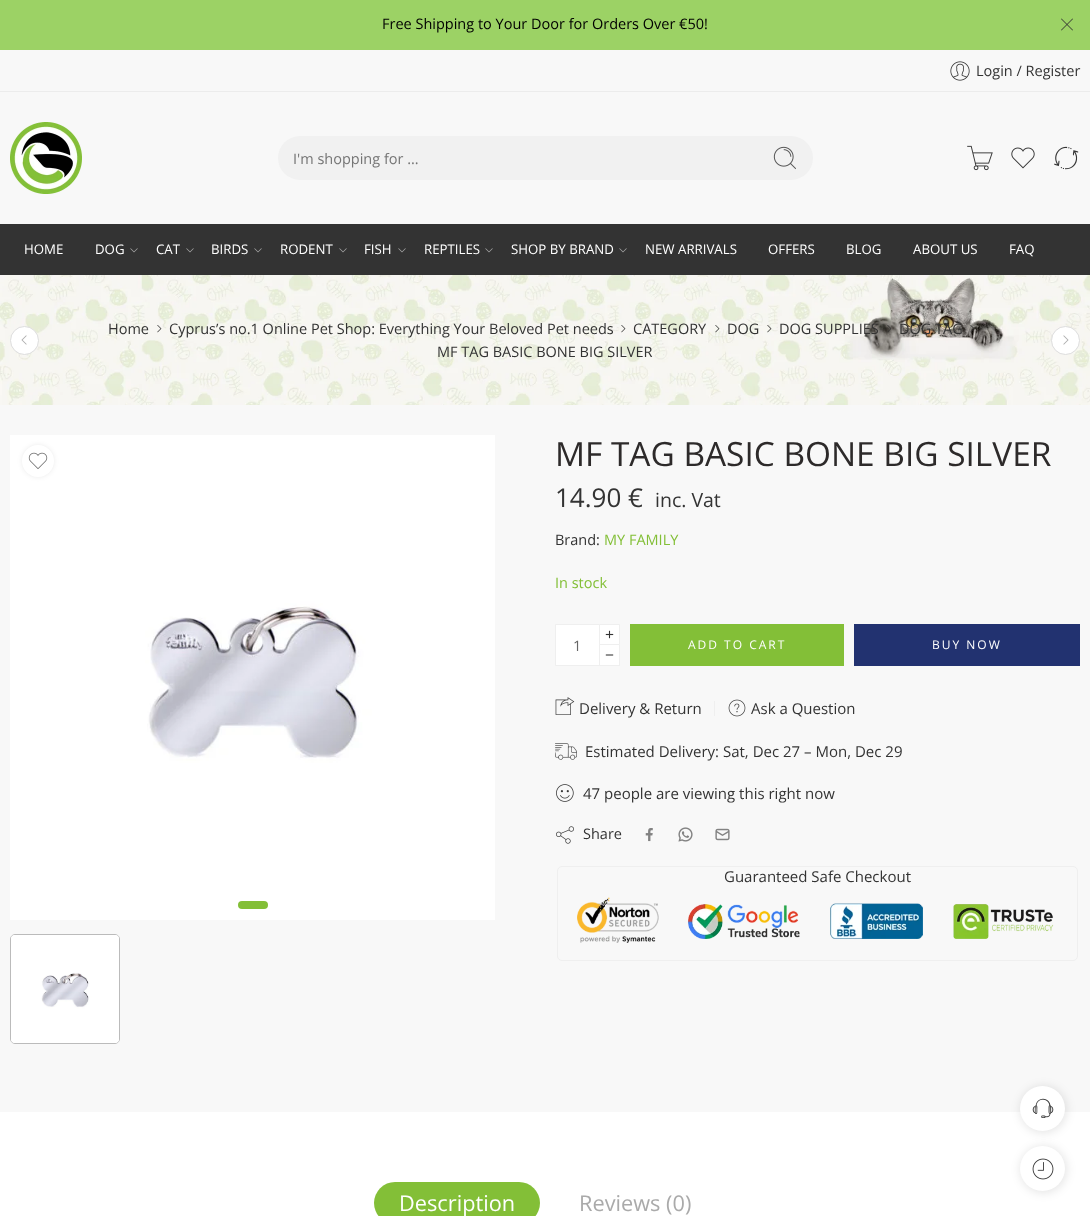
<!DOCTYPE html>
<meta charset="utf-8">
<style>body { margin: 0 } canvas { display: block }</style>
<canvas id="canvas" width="1090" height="1216"></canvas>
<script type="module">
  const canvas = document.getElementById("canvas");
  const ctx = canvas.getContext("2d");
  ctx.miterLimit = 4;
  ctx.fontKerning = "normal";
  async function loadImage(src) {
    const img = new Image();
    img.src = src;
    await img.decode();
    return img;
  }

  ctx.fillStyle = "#ffffff";
  ctx.fillRect(0, 0, 1090, 1216);
  ctx.fillStyle = "#f8f8f8";
  ctx.fillRect(0, 50, 1090, 174);
  ctx.fillStyle = "#9cd265";
  ctx.fillRect(0, 0, 1090, 50);
  ctx.font = "14.5px Open Sans";
  ctx.fillStyle = "#000000";
  ctx.fillText("Free Shipping to Your Door for Orders Over €50!", 382, 29);
  ctx.fillStyle = "#333333";
  ctx.beginPath();
  ctx.moveTo(1061, 30);
  ctx.lineTo(1072.5, 18.5);
  ctx.lineTo(1073, 19);
  ctx.lineTo(1061.5, 30.5);
  ctx.closePath();
  ctx.fill();
  ctx.beginPath();
  ctx.moveTo(1061.5, 18.5);
  ctx.lineTo(1073, 30);
  ctx.lineTo(1072.5, 30.5);
  ctx.lineTo(1061, 19);
  ctx.closePath();
  ctx.fill();
  ctx.fillStyle = "#ececec";
  ctx.fillRect(0, 91, 1090, 1);
  ctx.drawImage(await loadImage("img1.png"), 950, 61, 20, 20);
  ctx.fillStyle = "#333333";
  ctx.fillText("Login / Register", 976, 76);
  ctx.drawImage(await loadImage("img2.png"), 10, 122, 72, 72);
  ctx.fillStyle = "#f1f1f1";
  ctx.beginPath();
  ctx.roundRect(278, 136, 535, 44, 22);
  ctx.fill();
  ctx.fillStyle = "#757575";
  ctx.fillText("I'm shopping for ...", 293, 164);
  ctx.drawImage(await loadImage("img3.png"), 773, 146, 23, 24);
  ctx.drawImage(await loadImage("img4.png"), 967, 145, 26, 26);
  ctx.drawImage(await loadImage("img5.png"), 1011, 147, 24, 22);
  ctx.drawImage(await loadImage("img6.png"), 1054, 146, 25, 24);
  ctx.fillStyle = "#333333";
  ctx.fillRect(0, 224, 1090, 51);
  ctx.font = "13.25px Open Sans";
  ctx.fillStyle = "#ffffff";
  ctx.fillText("HOME", 24, 254);
  ctx.fillText("DOG", 95, 254);
  ctx.drawImage(await loadImage("img7.png"), 130, 248, 8, 5);
  ctx.fillText("CAT", 156, 254);
  ctx.drawImage(await loadImage("img7.png"), 186, 248, 8, 5);
  ctx.fillText("BIRDS", 211, 254);
  ctx.drawImage(await loadImage("img7.png"), 254, 248, 8, 5);
  ctx.fillText("RODENT", 280, 254);
  ctx.drawImage(await loadImage("img7.png"), 339, 248, 8, 5);
  ctx.fillText("FISH", 364, 254);
  ctx.drawImage(await loadImage("img7.png"), 398, 248, 8, 5);
  ctx.fillText("REPTILES", 424, 254);
  ctx.drawImage(await loadImage("img7.png"), 485, 248, 8, 5);
  ctx.fillText("SHOP BY BRAND", 511, 254);
  ctx.drawImage(await loadImage("img7.png"), 619, 248, 8, 5);
  ctx.fillText("NEW ARRIVALS", 645, 254);
  ctx.fillText("OFFERS", 768, 254);
  ctx.fillText("BLOG", 846, 254);
  ctx.fillText("ABOUT US", 913, 254);
  ctx.fillText("FAQ", 1009, 254);
  ctx.drawImage(await loadImage("img8.png"), 0, 275, 1090, 130);
  ctx.font = "14.5px Open Sans";
  ctx.fillStyle = "#333333";
  ctx.fillText("Home", 108, 334);
  ctx.drawImage(await loadImage("img9.png"), 157, 325, 5, 8);
  ctx.fillText("Cyprus’s no.1 Online Pet Shop: Everything Your Beloved Pet needs", 169, 334);
  ctx.drawImage(await loadImage("img10.png"), 621, 325, 5, 8);
  ctx.fillText("CATEGORY", 633, 334);
  ctx.drawImage(await loadImage("img11.png"), 715, 325, 5, 8);
  ctx.fillText("DOG", 727, 334);
  ctx.drawImage(await loadImage("img12.png"), 767, 325, 5, 8);
  ctx.fillText("DOG SUPPLIES", 779, 334);
  ctx.drawImage(await loadImage("img13.png"), 887, 325, 5, 8);
  ctx.fillText("DOG TAG", 899, 334);
  ctx.drawImage(await loadImage("img14.png"), 970, 325, 4, 8);
  ctx.fillText("MF TAG BASIC BONE BIG SILVER", 437, 357);
  ctx.fillStyle = "#ffffff";
  ctx.beginPath();
  ctx.arc(24.5, 340.5, 14, 0, Math.PI * 2);
  ctx.fill();
  ctx.strokeStyle = "#dddddd";
  ctx.stroke();
  ctx.drawImage(await loadImage("img15.png"), 21, 335, 6, 10);
  ctx.beginPath();
  ctx.arc(1065.5, 340.5, 14, 0, Math.PI * 2);
  ctx.fill();
  ctx.stroke();
  ctx.drawImage(await loadImage("img16.png"), 1063, 335, 6, 10);
  ctx.fillStyle = "#f8f8f8";
  ctx.fillRect(0, 405, 1090, 707);
  ctx.drawImage(await loadImage("img17.png"), 10, 435, 485, 485);
  ctx.fillStyle = "#83bf37";
  ctx.beginPath();
  ctx.roundRect(238, 901, 30, 8, 4);
  ctx.fill();
  ctx.fillStyle = "rgba(0, 0, 0, 0.08)";
  ctx.filter = "blur(2.5px)";
  ctx.beginPath();
  ctx.roundRect(22, 445, 32, 32, 16);
  ctx.fill();
  ctx.filter = "none";
  ctx.fillStyle = "#ffffff";
  ctx.beginPath();
  ctx.arc(38, 461, 16, 0, Math.PI * 2);
  ctx.fill();
  ctx.drawImage(await loadImage("img18.png"), 28, 452, 20, 17);
  ctx.beginPath();
  ctx.roundRect(10.5, 934.5, 109, 109, 4.5);
  ctx.strokeStyle = "#bbbbbb";
  ctx.stroke();
  ctx.drawImage(await loadImage("img19.png"), 11, 935, 108, 108);
  ctx.font = "33.4px Open Sans";
  ctx.fillStyle = "#2d2a2a";
  ctx.fillText("MF TAG BASIC BONE BIG SILVER", 555, 466);
  ctx.font = "26px Open Sans";
  ctx.fillStyle = "#333333";
  ctx.fillText("14.90 €", 555, 507);
  ctx.font = "19.5px Open Sans";
  ctx.fillText("inc. Vat", 655, 507);
  ctx.font = "14.5px Open Sans";
  ctx.fillText("Brand:", 555, 545);
  ctx.fillStyle = "#83bf37";
  ctx.fillText("MY FAMILY", 604, 545);
  ctx.fillText("In stock", 555, 588);
  ctx.fillStyle = "#ffffff";
  ctx.beginPath();
  ctx.rect(555.5, 624.5, 44, 41);
  ctx.fill();
  ctx.strokeStyle = "#efefef";
  ctx.stroke();
  ctx.fillStyle = "#666666";
  ctx.fillText("1", 573, 651);
  ctx.fillStyle = "#ffffff";
  ctx.beginPath();
  ctx.rect(599.5, 624.5, 20, 20);
  ctx.fill();
  ctx.stroke();
  ctx.drawImage(await loadImage("img20.png"), 605, 630, 9, 9);
  ctx.fillRect(600, 645, 19, 20);
  ctx.fillStyle = "#efefef";
  ctx.fillRect(619, 645, 1, 21);
  ctx.fillRect(599, 665, 21, 1);
  ctx.drawImage(await loadImage("img21.png"), 605, 654, 9, 2);
  ctx.fillStyle = "#83bf37";
  ctx.fillRect(630, 624, 214, 42);
  ctx.letterSpacing = "2px";
  ctx.font = "12px Open Sans";
  ctx.fillStyle = "#ffffff";
  ctx.fillText("ADD TO CART", 688, 649);
  ctx.fillStyle = "#223270";
  ctx.fillRect(854, 624, 226, 42);
  ctx.fillStyle = "#ffffff";
  ctx.fillText("BUY NOW", 932, 649);
  ctx.drawImage(await loadImage("img22.png"), 555, 697, 20, 18);
  ctx.letterSpacing = "0px";
  ctx.font = "15px Open Sans";
  ctx.fillStyle = "#333333";
  ctx.fillText("Delivery & Return", 579, 714);
  ctx.fillStyle = "#efefef";
  ctx.fillRect(714, 701, 1, 15);
  ctx.drawImage(await loadImage("img23.png"), 728, 699, 18, 18);
  ctx.fillStyle = "#333333";
  ctx.fillText("Ask a Question", 751, 714);
  ctx.drawImage(await loadImage("img24.png"), 555, 743, 22, 17);
  ctx.fillText("Estimated Delivery: Sat, Dec 27 – Mon, Dec 29", 585, 757);
  ctx.drawImage(await loadImage("img25.png"), 556, 784, 18, 18);
  ctx.fillText("47 people are viewing this right now", 583, 799);
  ctx.drawImage(await loadImage("img26.png"), 556, 826, 18, 18);
  ctx.font = "14.5px Open Sans";
  ctx.fillText("Share", 583, 839);
  ctx.drawImage(await loadImage("img27.png"), 645, 828, 8, 14);
  ctx.drawImage(await loadImage("img28.png"), 678, 827, 15, 15);
  ctx.drawImage(await loadImage("img29.png"), 715, 828, 15, 13);
  ctx.beginPath();
  ctx.roundRect(557.5, 866.5, 520, 94, 4.5);
  ctx.stroke();
  ctx.font = "15px Open Sans";
  ctx.fillText("Guaranteed Safe Checkout", 724, 882);
  ctx.drawImage(await loadImage("img30.png"), 577, 897, 477, 46);
  ctx.fillStyle = "#83bf37";
  ctx.beginPath();
  ctx.roundRect(374, 1182, 166, 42, 21);
  ctx.fill();
  ctx.font = "21.75px Open Sans";
  ctx.fillStyle = "#ffffff";
  ctx.fillText("Description", 399, 1211);
  ctx.fillStyle = "#aaaaaa";
  ctx.fillText("Reviews (0)", 579, 1211);
  ctx.fillStyle = "rgba(0, 0, 0, 0.1)";
  ctx.filter = "blur(5px)";
  ctx.beginPath();
  ctx.roundRect(1020, 1086, 47, 47, 23.5);
  ctx.fill();
  ctx.filter = "none";
  ctx.fillStyle = "#ffffff";
  ctx.beginPath();
  ctx.arc(1042.5, 1108.5, 22.5, 0, Math.PI * 2);
  ctx.fill();
  ctx.drawImage(await loadImage("img31.png"), 1032, 1098, 22, 20);
  ctx.fillStyle = "rgba(0, 0, 0, 0.1)";
  ctx.filter = "blur(5px)";
  ctx.beginPath();
  ctx.roundRect(1020, 1146, 47, 47, 23.5);
  ctx.fill();
  ctx.filter = "none";
  ctx.fillStyle = "#ffffff";
  ctx.beginPath();
  ctx.arc(1042.5, 1168.5, 22.5, 0, Math.PI * 2);
  ctx.fill();
  ctx.drawImage(await loadImage("img32.png"), 1032, 1158, 22, 22);
</script>
